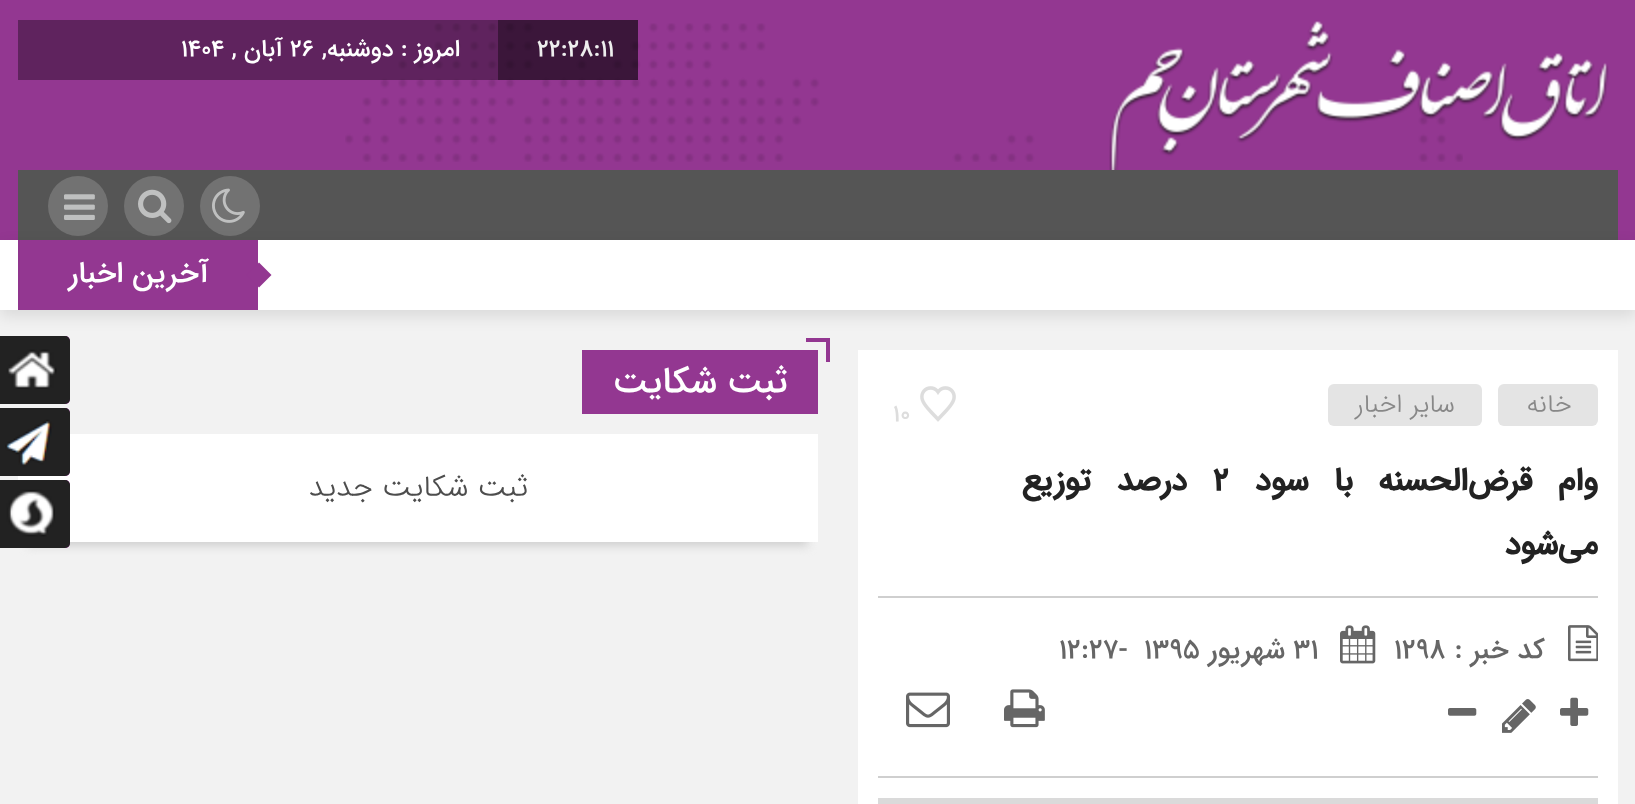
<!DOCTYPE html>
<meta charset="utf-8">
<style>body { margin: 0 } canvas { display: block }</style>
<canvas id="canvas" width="1635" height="804"></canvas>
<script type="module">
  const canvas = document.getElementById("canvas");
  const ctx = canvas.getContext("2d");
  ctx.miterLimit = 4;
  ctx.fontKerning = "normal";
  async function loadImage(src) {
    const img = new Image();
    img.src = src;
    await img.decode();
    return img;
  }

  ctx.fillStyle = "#f2f2f2";
  ctx.fillRect(0, 0, 1635, 804);
  ctx.fillStyle = "#933791";
  ctx.fillRect(0, 0, 1635, 240);
  ctx.drawImage(await loadImage("img1.png"), 345, 23, 1118, 139);
  ctx.drawImage(await loadImage("img2.png"), 1109, 21, 500, 149);
  ctx.fillStyle = "rgba(0, 0, 0, 0.6)";
  ctx.fillRect(498, 20, 140, 60);
  ctx.font = "500 24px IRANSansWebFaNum";
  ctx.fillStyle = "#eeeeee";
  ctx.fillText("22:28:11", 537, 56);
  ctx.fillStyle = "rgba(0, 0, 0, 0.35)";
  ctx.fillRect(18, 20, 480, 60);
  ctx.direction = "rtl";
  ctx.fillStyle = "#ffffff";
  ctx.fillText("امروز : دوشنبه,", 460, 56);
  ctx.direction = "ltr";
  ctx.fillText("۲۶", 290, 56);
  ctx.direction = "rtl";
  ctx.fillText("آبان ,", 283, 56);
  ctx.direction = "ltr";
  ctx.fillText("۱۴۰۴", 181, 56);
  ctx.fillStyle = "#555555";
  ctx.fillRect(18, 170, 1600, 70);
  ctx.fillStyle = "#727272";
  ctx.beginPath();
  ctx.arc(230, 206, 30, 0, Math.PI * 2);
  ctx.fill();
  ctx.drawImage(await loadImage("img3.png"), 212, 188, 33, 35);
  ctx.beginPath();
  ctx.arc(154, 206, 30, 0, Math.PI * 2);
  ctx.fill();
  ctx.drawImage(await loadImage("img4.png"), 138, 189, 34, 35);
  ctx.beginPath();
  ctx.arc(78, 206, 30, 0, Math.PI * 2);
  ctx.fill();
  ctx.drawImage(await loadImage("img5.png"), 64, 194, 31, 26);
  ctx.fillStyle = "rgba(0, 0, 0, 0.1)";
  ctx.filter = "blur(8px)";
  ctx.beginPath();
  ctx.rect(0, 246, 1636, 70);
  ctx.fill();
  ctx.filter = "none";
  ctx.fillStyle = "#ffffff";
  ctx.fillRect(0, 240, 1635, 70);
  ctx.fillStyle = "#933791";
  ctx.fillRect(20, 240, 238, 70);
  ctx.fillStyle = "#8f358d";
  ctx.fillRect(18, 240, 2, 70);
  ctx.fillStyle = "#933791";
  ctx.beginPath();
  ctx.moveTo(259, 262.5);
  ctx.lineTo(271.5, 275);
  ctx.lineTo(259, 287.5);
  ctx.lineTo(246.5, 275);
  ctx.closePath();
  ctx.fill();
  ctx.direction = "rtl";
  ctx.font = "500 30px IRANSansWebFaNum";
  ctx.fillStyle = "#ffffff";
  ctx.fillText("آخرین اخبار", 209, 282);
  ctx.fillRect(858, 350, 760, 454);
  ctx.fillStyle = "#e4e4e4";
  ctx.beginPath();
  ctx.roundRect(1498, 384, 100, 42, 6);
  ctx.fill();
  ctx.font = "300 26px IRANSansWebFaNum";
  ctx.fillStyle = "#888888";
  ctx.fillText("خانه", 1572, 412);
  ctx.fillStyle = "#e4e4e4";
  ctx.beginPath();
  ctx.roundRect(1328, 384, 154, 42, 6);
  ctx.fill();
  ctx.fillStyle = "#888888";
  ctx.fillText("سایر اخبار", 1455, 412);
  ctx.drawImage(await loadImage("img6.png"), 920, 386, 36, 36);
  ctx.direction = "ltr";
  ctx.font = "500 24px IRANSansWebFaNum";
  ctx.fillStyle = "#dddddd";
  ctx.fillText("10", 893, 421);
  ctx.wordSpacing = "16px";
  ctx.direction = "rtl";
  ctx.font = "bold 32px IRANSansWebFaNum";
  ctx.fillStyle = "#222222";
  ctx.fillText("وام قرض‌الحسنه با سود", 1598, 490);
  ctx.wordSpacing = "0px";
  ctx.direction = "ltr";
  ctx.fillText("۲", 1213, 490);
  ctx.wordSpacing = "16px";
  ctx.direction = "rtl";
  ctx.fillText("درصد توزیع", 1187, 490);
  ctx.wordSpacing = "0px";
  ctx.fillText("می‌شود", 1598, 554);
  ctx.fillStyle = "#cfcfcf";
  ctx.fillRect(878, 596, 720, 2);
  ctx.fillRect(878, 776, 720, 2);
  ctx.drawImage(await loadImage("img7.png"), 1568, 625, 30, 37);
  ctx.font = "500 28px IRANSansWebFaNum";
  ctx.fillStyle = "#666666";
  ctx.fillText("کد خبر :", 1545, 658);
  ctx.direction = "ltr";
  ctx.fillText("1298", 1394, 658);
  ctx.drawImage(await loadImage("img8.png"), 1340, 625, 36, 39);
  ctx.fillText("31", 1293, 658);
  ctx.direction = "rtl";
  ctx.fillText("شهریور", 1285, 658);
  ctx.direction = "ltr";
  ctx.fillText("1395", 1144, 658);
  ctx.fillText("12:27-", 1059, 658);
  ctx.drawImage(await loadImage("img9.png"), 1560, 697, 29, 29);
  ctx.drawImage(await loadImage("img10.png"), 1502, 699, 34, 34);
  ctx.drawImage(await loadImage("img11.png"), 1448, 708, 29, 8);
  ctx.drawImage(await loadImage("img12.png"), 1004, 689, 41, 39);
  ctx.drawImage(await loadImage("img13.png"), 906, 692, 44, 36);
  ctx.fillStyle = "#dadada";
  ctx.fillRect(878, 798, 720, 6);
  ctx.fillStyle = "#933791";
  ctx.fillRect(582, 350, 236, 64);
  ctx.fillRect(806, 338, 24, 4);
  ctx.fillRect(826, 338, 4, 24);
  ctx.direction = "rtl";
  ctx.font = "500 36px IRANSansWebFaNum";
  ctx.fillStyle = "#ffffff";
  ctx.fillText("ثبت شکایت", 788, 392);
  ctx.fillStyle = "#cfcfcf";
  ctx.filter = "blur(5px)";
  ctx.beginPath();
  ctx.rect(28, 458, 780, 88);
  ctx.fill();
  ctx.filter = "none";
  ctx.fillStyle = "#ffffff";
  ctx.fillRect(18, 434, 800, 108);
  ctx.font = "300 30px IRANSansWebFaNum";
  ctx.fillStyle = "#4d4d4d";
  ctx.fillText("ثبت شکایت جدید", 528, 496);
  ctx.fillStyle = "#933791";
  ctx.beginPath();
  ctx.moveTo(-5, 336);
  ctx.lineTo(65, 336);
  ctx.bezierCurveTo(68, 336, 70, 338, 70, 341);
  ctx.lineTo(70, 399);
  ctx.bezierCurveTo(70, 402, 68, 404, 65, 404);
  ctx.lineTo(-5, 404);
  ctx.closePath();
  ctx.fill();
  ctx.drawImage(await loadImage("img14.png"), 0, 336, 70, 68);
  ctx.beginPath();
  ctx.moveTo(-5, 408);
  ctx.lineTo(65, 408);
  ctx.bezierCurveTo(68, 408, 70, 410, 70, 413);
  ctx.lineTo(70, 471);
  ctx.bezierCurveTo(70, 474, 68, 476, 65, 476);
  ctx.lineTo(-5, 476);
  ctx.closePath();
  ctx.fill();
  ctx.drawImage(await loadImage("img15.png"), 0, 408, 70, 68);
  ctx.beginPath();
  ctx.moveTo(-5, 480);
  ctx.lineTo(65, 480);
  ctx.bezierCurveTo(68, 480, 70, 482, 70, 485);
  ctx.lineTo(70, 543);
  ctx.bezierCurveTo(70, 546, 68, 548, 65, 548);
  ctx.lineTo(-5, 548);
  ctx.closePath();
  ctx.fill();
  ctx.drawImage(await loadImage("img16.png"), 0, 480, 70, 68);
</script>
